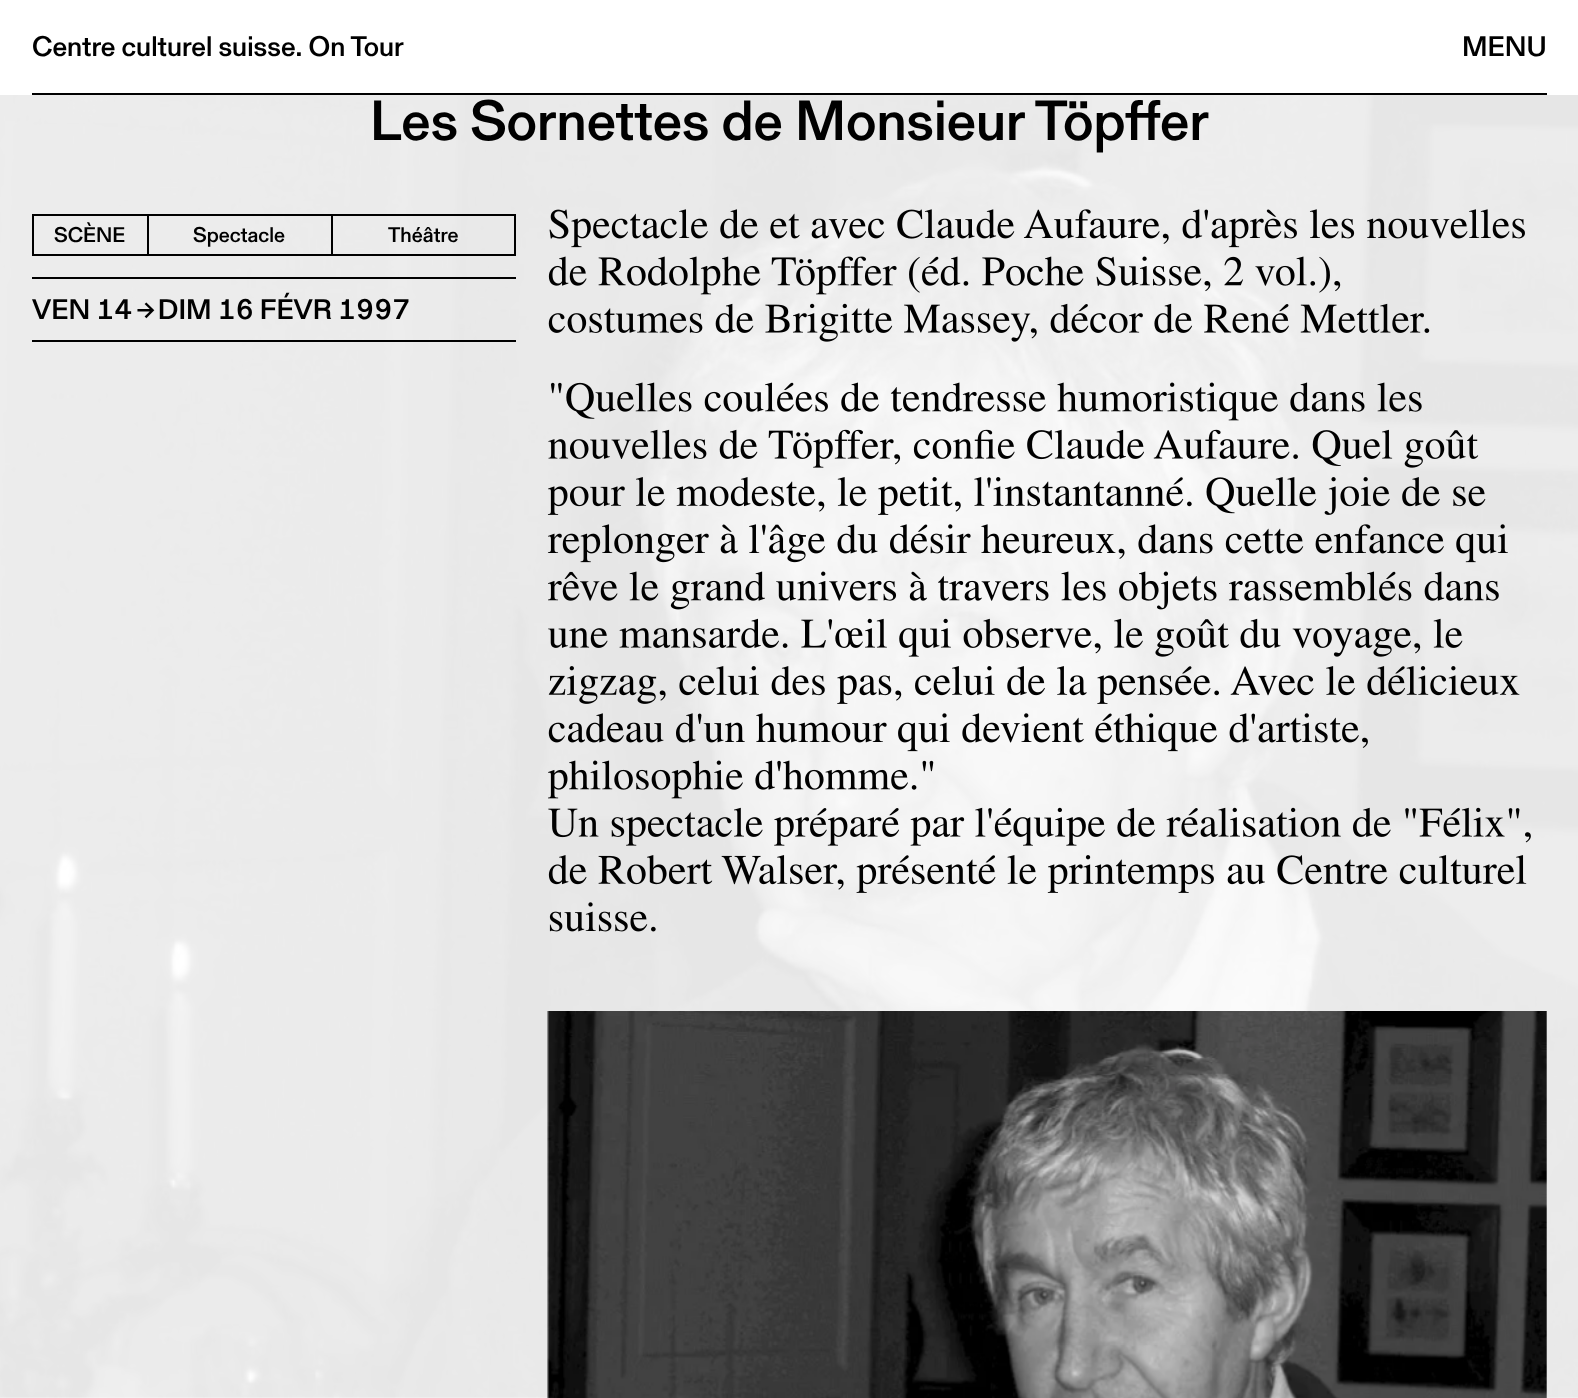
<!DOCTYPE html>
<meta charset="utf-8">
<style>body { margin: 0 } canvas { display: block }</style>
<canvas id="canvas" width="1578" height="1398"></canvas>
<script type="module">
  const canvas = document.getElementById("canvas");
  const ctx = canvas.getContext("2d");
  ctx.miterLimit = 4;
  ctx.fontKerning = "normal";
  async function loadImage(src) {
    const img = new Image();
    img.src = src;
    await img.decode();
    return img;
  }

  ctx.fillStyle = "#ffffff";
  ctx.fillRect(0, 0, 1578, 1398);
  ctx.fillStyle = "#000000";
  ctx.fillRect(32, 93, 1515, 2);
  ctx.font = "500 28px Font";
  ctx.fillText("Centre culturel suisse. On Tour", 32, 56);
  ctx.fillText("MENU", 1462, 56);
  ctx.drawImage(await loadImage("img1.png"), 0, 95, 1578, 1303);
  ctx.font = "500 56px Font";
  ctx.fillText("Les Sornettes de Monsieur Töpffer", 370, 140);
  ctx.fillRect(32, 277, 484, 2);
  ctx.strokeStyle = "#000000";
  ctx.lineWidth = 2;
  ctx.strokeRect(33, 215, 115, 40);
  ctx.font = "500 21px Font";
  ctx.fillText("SCÈNE", 54, 242);
  ctx.strokeRect(148, 215, 184, 40);
  ctx.fillText("Spectacle", 193, 242);
  ctx.strokeRect(332, 215, 183, 40);
  ctx.fillText("Théâtre", 388, 242);
  ctx.fillRect(32, 340, 484, 2);
  ctx.font = "500 28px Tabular";
  ctx.fillText("VEN 14 → DIM 16 FÉVR 1997", 32, 319);
  ctx.drawImage(await loadImage("img2.png"), 549, 209, 976, 39);
  ctx.drawImage(await loadImage("img3.png"), 548, 256, 793, 39);
  ctx.drawImage(await loadImage("img4.png"), 548, 303, 882, 39);
  ctx.drawImage(await loadImage("img5.png"), 551, 382, 871, 39);
  ctx.drawImage(await loadImage("img6.png"), 548, 429, 931, 39);
  ctx.drawImage(await loadImage("img7.png"), 547, 477, 939, 38);
  ctx.drawImage(await loadImage("img8.png"), 547, 524, 961, 39);
  ctx.drawImage(await loadImage("img9.png"), 548, 571, 951, 39);
  ctx.drawImage(await loadImage("img10.png"), 548, 618, 915, 39);
  ctx.drawImage(await loadImage("img11.png"), 548, 666, 972, 38);
  ctx.drawImage(await loadImage("img12.png"), 548, 713, 820, 39);
  ctx.drawImage(await loadImage("img13.png"), 548, 760, 386, 39);
  ctx.drawImage(await loadImage("img14.png"), 548, 807, 983, 39);
  ctx.drawImage(await loadImage("img15.png"), 548, 855, 979, 38);
  ctx.drawImage(await loadImage("img16.png"), 549, 902, 107, 30);
  ctx.drawImage(await loadImage("img17.png"), 547, 1011, 1000, 387);
</script>
